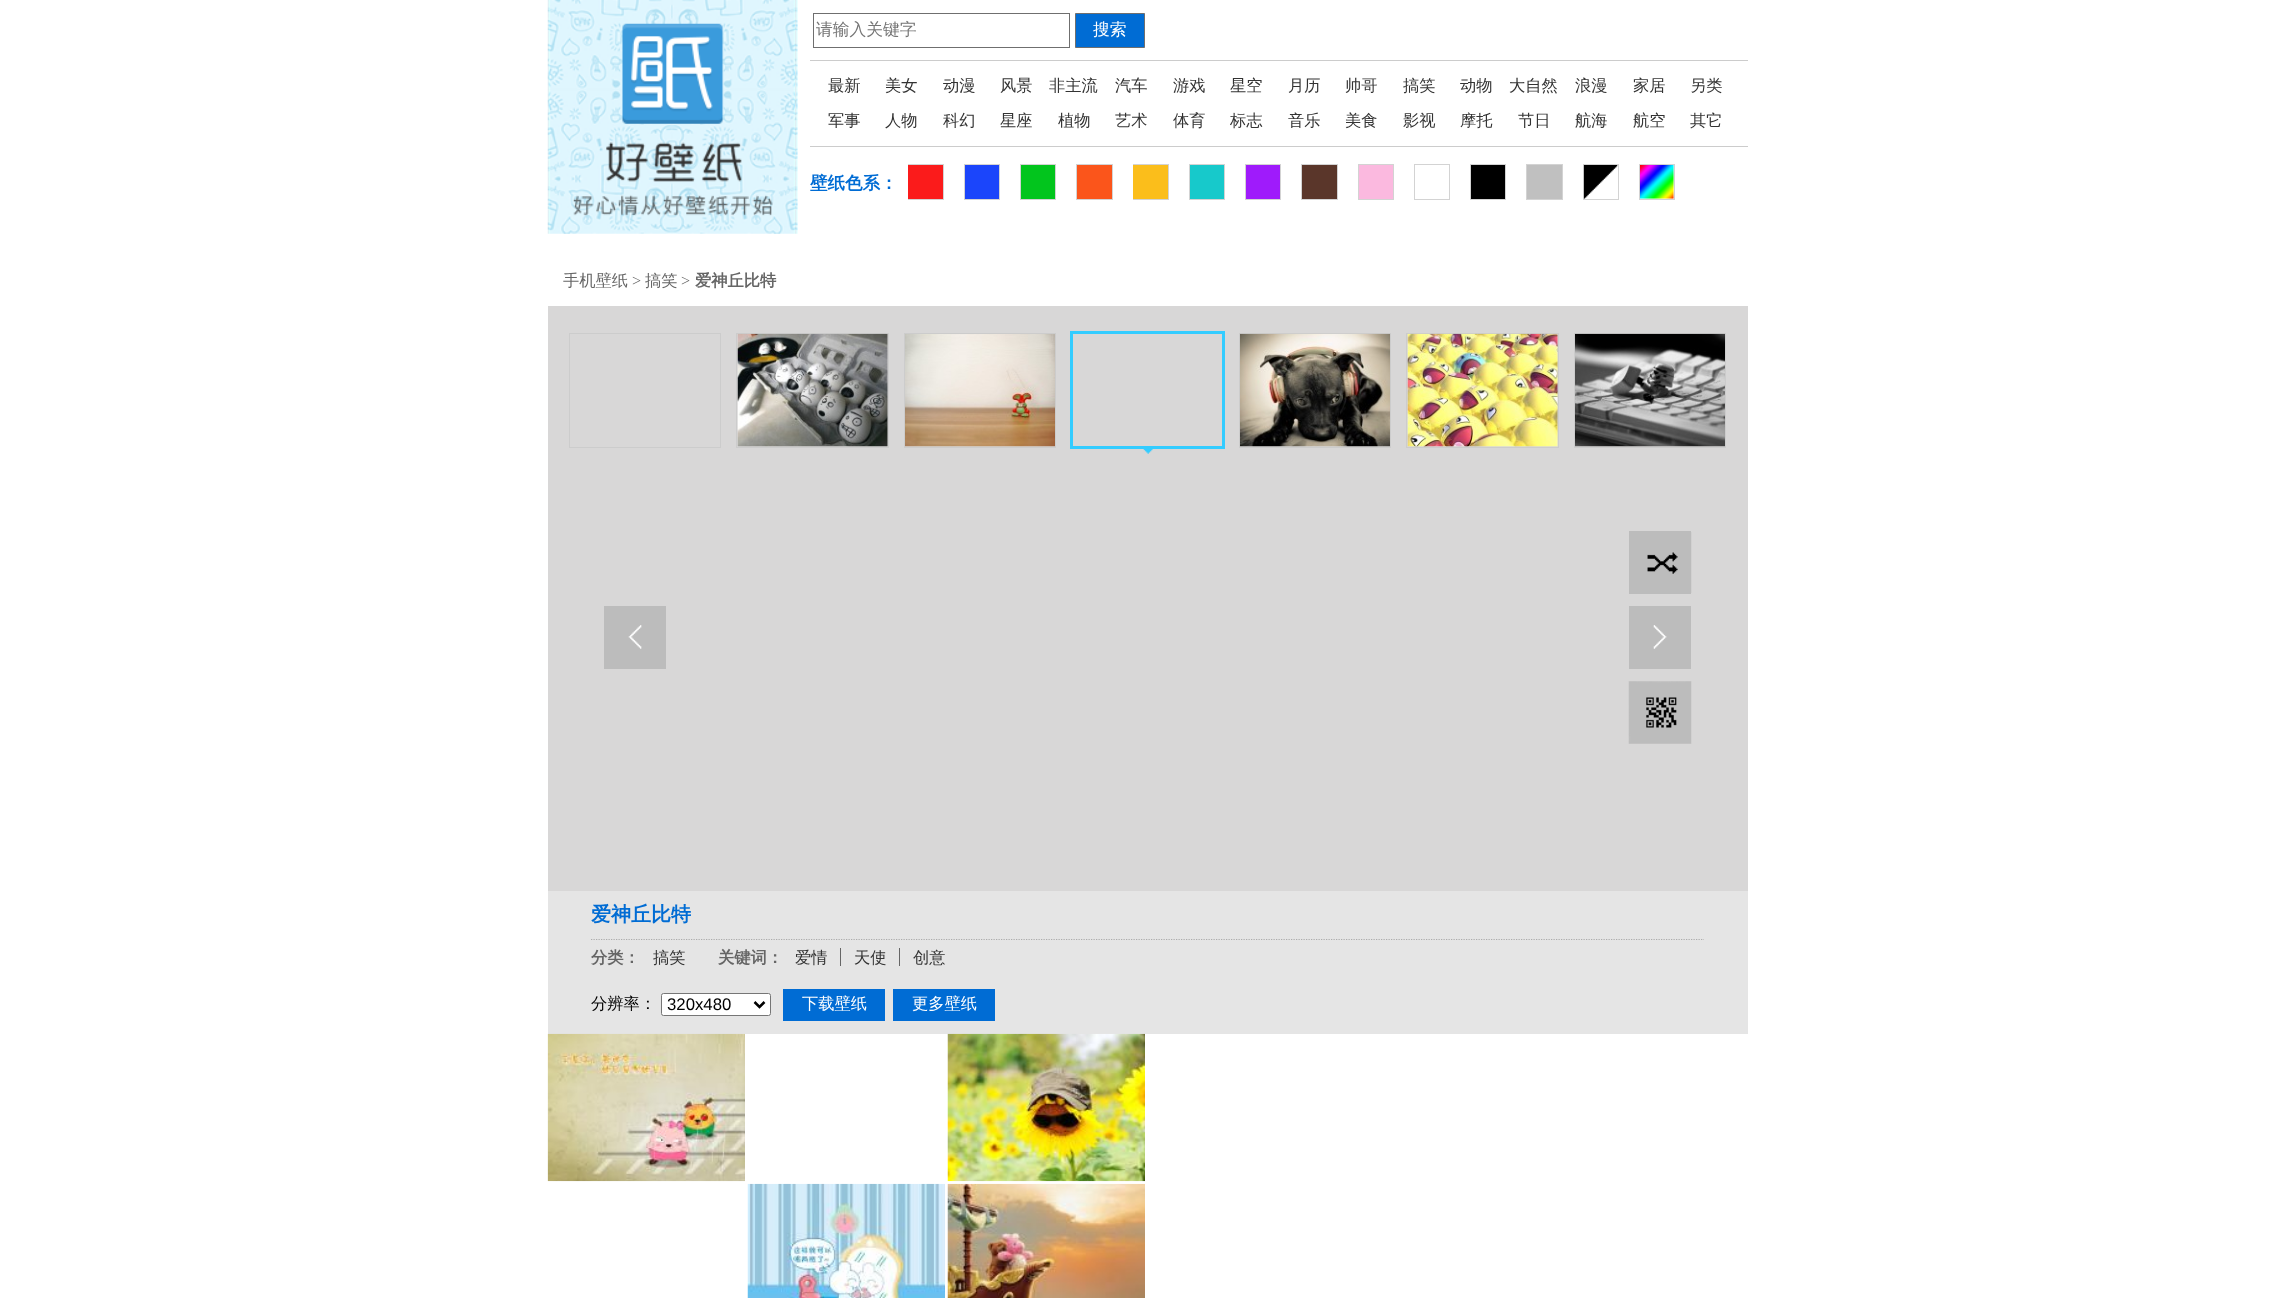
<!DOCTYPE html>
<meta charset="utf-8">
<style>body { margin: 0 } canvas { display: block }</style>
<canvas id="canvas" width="2294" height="1298"></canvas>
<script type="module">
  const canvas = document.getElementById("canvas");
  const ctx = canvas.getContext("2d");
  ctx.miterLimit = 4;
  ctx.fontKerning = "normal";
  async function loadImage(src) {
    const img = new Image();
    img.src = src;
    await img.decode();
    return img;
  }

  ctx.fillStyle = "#ffffff";
  ctx.fillRect(0, 0, 2294, 1298);
  ctx.drawImage(await loadImage("img1.png"), 547, 0, 251, 234);
  ctx.strokeStyle = "#6f6f6f";
  ctx.strokeRect(813.5, 13.5, 256, 34);
  ctx.font = "500 16.75px WenQuanYi Zen Hei";
  ctx.fillStyle = "#757575";
  ctx.fillText("请输入关键字", 816, 35);
  ctx.fillStyle = "#006cd4";
  ctx.beginPath();
  ctx.rect(1075.5, 13.5, 69, 34);
  ctx.fill();
  ctx.stroke();
  ctx.fillStyle = "#ffffff";
  ctx.fillText("搜索", 1093, 35);
  ctx.fillStyle = "#cccccc";
  ctx.fillRect(810, 60, 938, 1);
  ctx.fillRect(810, 146, 938, 1);
  ctx.font = "500 16.25px WenQuanYi Zen Hei";
  ctx.fillStyle = "#333333";
  ctx.fillText("最新", 828, 91);
  ctx.fillText("美女", 885, 91);
  ctx.fillText("动漫", 943, 91);
  ctx.fillText("风景", 1000, 91);
  ctx.fillText("非主流", 1049, 91);
  ctx.fillText("汽车", 1115, 91);
  ctx.fillText("游戏", 1173, 91);
  ctx.fillText("星空", 1230, 91);
  ctx.fillText("月历", 1288, 91);
  ctx.fillText("帅哥", 1345, 91);
  ctx.fillText("搞笑", 1403, 91);
  ctx.fillText("动物", 1460, 91);
  ctx.fillText("大自然", 1509, 91);
  ctx.fillText("浪漫", 1575, 91);
  ctx.fillText("家居", 1633, 91);
  ctx.fillText("另类", 1690, 91);
  ctx.fillText("军事", 828, 126);
  ctx.fillText("人物", 885, 126);
  ctx.fillText("科幻", 943, 126);
  ctx.fillText("星座", 1000, 126);
  ctx.fillText("植物", 1058, 126);
  ctx.fillText("艺术", 1115, 126);
  ctx.fillText("体育", 1173, 126);
  ctx.fillText("标志", 1230, 126);
  ctx.fillText("音乐", 1288, 126);
  ctx.fillText("美食", 1345, 126);
  ctx.fillText("影视", 1403, 126);
  ctx.fillText("摩托", 1460, 126);
  ctx.fillText("节日", 1518, 126);
  ctx.fillText("航海", 1575, 126);
  ctx.fillText("航空", 1633, 126);
  ctx.fillText("其它", 1690, 126);
  ctx.font = "bold 17.5px WenQuanYi Zen Hei";
  ctx.fillStyle = "#006cd4";
  ctx.fillText("壁纸色系：", 810, 189);
  ctx.strokeStyle = "#d3d3d3";
  ctx.strokeRect(908.5, 164.5, 35, 35);
  ctx.fillStyle = "#fb1b1b";
  ctx.fillRect(908, 165, 35, 34);
  ctx.strokeRect(964.5, 164.5, 35, 35);
  ctx.fillStyle = "#1b45fb";
  ctx.fillRect(965, 165, 34, 34);
  ctx.strokeRect(1020.5, 164.5, 35, 35);
  ctx.fillStyle = "#02c51d";
  ctx.fillRect(1021, 165, 34, 34);
  ctx.strokeRect(1076.5, 164.5, 36, 35);
  ctx.fillStyle = "#fb551b";
  ctx.fillRect(1077, 165, 35, 34);
  ctx.strokeRect(1133.5, 164.5, 35, 35);
  ctx.fillStyle = "#fbbe1b";
  ctx.fillRect(1133, 165, 35, 34);
  ctx.strokeRect(1189.5, 164.5, 35, 35);
  ctx.fillStyle = "#17c9cb";
  ctx.fillRect(1190, 165, 34, 34);
  ctx.strokeRect(1245.5, 164.5, 35, 35);
  ctx.fillStyle = "#9f1bfb";
  ctx.fillRect(1246, 165, 34, 34);
  ctx.strokeRect(1301.5, 164.5, 36, 35);
  ctx.fillStyle = "#5a362a";
  ctx.fillRect(1302, 165, 35, 34);
  ctx.strokeRect(1358.5, 164.5, 35, 35);
  ctx.fillStyle = "#fbb9df";
  ctx.fillRect(1359, 165, 34, 34);
  ctx.strokeRect(1414.5, 164.5, 35, 35);
  ctx.strokeRect(1470.5, 164.5, 35, 35);
  ctx.fillStyle = "#000000";
  ctx.fillRect(1471, 165, 34, 34);
  ctx.strokeRect(1526.5, 164.5, 36, 35);
  ctx.fillStyle = "#c0c0c0";
  ctx.fillRect(1527, 165, 35, 34);
  ctx.strokeRect(1583.5, 164.5, 35, 35);
  ctx.drawImage(await loadImage("img2.png"), 1583, 165, 35, 34);
  ctx.strokeRect(1639.5, 164.5, 35, 35);
  ctx.drawImage(await loadImage("img3.png"), 1640, 165, 34, 34);
  ctx.font = "500 16.25px WenQuanYi Zen Hei";
  ctx.fillStyle = "#666666";
  ctx.fillText("手机壁纸", 563, 286);
  ctx.font = "16.25px Liberation Serif";
  ctx.fillText(">", 632, 286);
  ctx.font = "500 16.25px WenQuanYi Zen Hei";
  ctx.fillText("搞笑", 645, 286);
  ctx.font = "16.25px Liberation Serif";
  ctx.fillText(">", 681, 286);
  ctx.font = "bold 16.25px WenQuanYi Zen Hei";
  ctx.fillText("爱神丘比特", 695, 286);
  ctx.fillStyle = "#d8d7d7";
  ctx.fillRect(548, 306, 1200, 585);
  ctx.strokeStyle = "#cccccc";
  ctx.strokeRect(569.5, 333.5, 151, 114);
  ctx.strokeRect(736.5, 333.5, 152, 114);
  ctx.drawImage(await loadImage("img4.png"), 737, 333, 151, 114);
  ctx.strokeRect(904.5, 333.5, 151, 114);
  ctx.drawImage(await loadImage("img5.png"), 905, 334, 150, 113);
  ctx.drawImage(await loadImage("img6.png"), 1143, 449, 10, 5);
  ctx.strokeStyle = "#33ccff";
  ctx.lineWidth = 3;
  ctx.strokeRect(1071.5, 332.5, 152, 115);
  ctx.strokeStyle = "#cccccc";
  ctx.lineWidth = 1;
  ctx.strokeRect(1239.5, 333.5, 151, 114);
  ctx.drawImage(await loadImage("img7.png"), 1240, 333, 150, 114);
  ctx.strokeRect(1406.5, 333.5, 152, 114);
  ctx.drawImage(await loadImage("img8.png"), 1407, 333, 151, 114);
  ctx.strokeRect(1574.5, 333.5, 151, 114);
  ctx.drawImage(await loadImage("img9.png"), 1575, 333, 150, 114);
  ctx.fillStyle = "#bcbcbc";
  ctx.fillRect(1629, 531, 62, 63);
  ctx.drawImage(await loadImage("img10.png"), 1647, 532, 45, 61);
  ctx.fillRect(604, 606, 62, 63);
  ctx.drawImage(await loadImage("img11.png"), 628, 625, 14, 24);
  ctx.fillRect(1629, 606, 62, 63);
  ctx.drawImage(await loadImage("img12.png"), 1653, 625, 14, 24);
  ctx.drawImage(await loadImage("img13.png"), 1628, 681, 64, 63);
  ctx.fillStyle = "#e5e5e5";
  ctx.fillRect(548, 891, 1200, 143);
  ctx.beginPath();
  ctx.moveTo(591, 939.5);
  ctx.lineTo(1704, 939.5);
  ctx.strokeStyle = "#acacac";
  ctx.lineWidth = 1.2;
  ctx.setLineDash([1.25, 1.25]);
  ctx.stroke();
  ctx.font = "bold 20px WenQuanYi Zen Hei";
  ctx.fillStyle = "#006cd4";
  ctx.fillText("爱神丘比特", 591, 921);
  ctx.fillStyle = "#e5e5e5";
  ctx.fillRect(591, 940, 49, 1);
  ctx.font = "bold 16.25px WenQuanYi Zen Hei";
  ctx.fillStyle = "#666666";
  ctx.fillText("分类：", 591, 963);
  ctx.font = "500 16.25px WenQuanYi Zen Hei";
  ctx.fillStyle = "#333333";
  ctx.fillText("搞笑", 653, 963);
  ctx.fillStyle = "#e5e5e5";
  ctx.fillRect(718, 940, 64, 1);
  ctx.font = "bold 16.25px WenQuanYi Zen Hei";
  ctx.fillStyle = "#666666";
  ctx.fillText("关键词：", 718, 963);
  ctx.font = "500 16.25px WenQuanYi Zen Hei";
  ctx.fillStyle = "#333333";
  ctx.fillText("爱情", 795, 963);
  ctx.fillText("天使", 854, 963);
  ctx.fillStyle = "#666666";
  ctx.fillRect(840, 948, 1, 18);
  ctx.fillStyle = "#333333";
  ctx.fillText("创意", 913, 963);
  ctx.fillStyle = "#666666";
  ctx.fillRect(899, 948, 1, 18);
  ctx.fillStyle = "#000000";
  ctx.fillText("分辨率：", 591, 1009);
  ctx.fillStyle = "#ffffff";
  ctx.beginPath();
  ctx.roundRect(661.5, 993.5, 109, 22, 2);
  ctx.fill();
  ctx.strokeStyle = "#767676";
  ctx.lineWidth = 1;
  ctx.setLineDash([]);
  ctx.stroke();
  ctx.beginPath();
  ctx.moveTo(754.5, 1002);
  ctx.lineTo(759.5, 1007);
  ctx.lineTo(764.5, 1002);
  ctx.strokeStyle = "#000000";
  ctx.lineWidth = 2.5;
  ctx.stroke();
  ctx.font = "16.75px Liberation Sans";
  ctx.fillStyle = "#000000";
  ctx.fillText("320x480", 667, 1010);
  ctx.fillStyle = "#006cd4";
  ctx.fillRect(783, 989, 102, 32);
  ctx.font = "500 16.25px WenQuanYi Zen Hei";
  ctx.fillStyle = "#ffffff";
  ctx.fillText("下载壁纸", 802, 1009);
  ctx.fillStyle = "#006cd4";
  ctx.fillRect(893, 989, 102, 32);
  ctx.fillStyle = "#ffffff";
  ctx.fillText("更多壁纸", 912, 1009);
  ctx.drawImage(await loadImage("img14.png"), 547, 1033, 198, 149);
  ctx.drawImage(await loadImage("img15.png"), 947, 1033, 198, 149);
  ctx.drawImage(await loadImage("img16.png"), 747, 1183, 198, 115);
  ctx.drawImage(await loadImage("img17.png"), 947, 1183, 198, 115);
</script>
